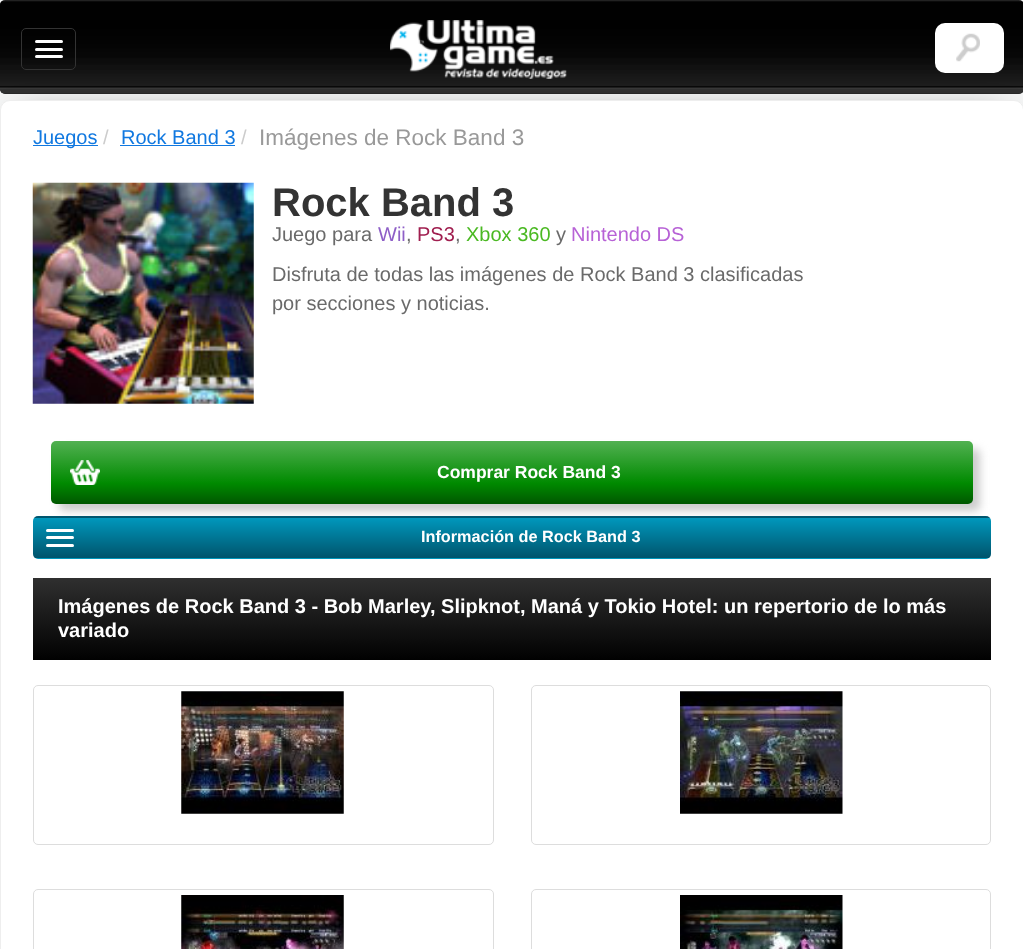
<!DOCTYPE html>
<meta charset="utf-8">
<style>body { margin: 0 } canvas { display: block }</style>
<canvas id="canvas" width="1023" height="949"></canvas>
<script type="module">
  const canvas = document.getElementById("canvas");
  const ctx = canvas.getContext("2d");
  ctx.miterLimit = 4;
  ctx.fontKerning = "normal";
  async function loadImage(src) {
    const img = new Image();
    img.src = src;
    await img.decode();
    return img;
  }
  let gradient;

  ctx.fillStyle = "#f4f5f5";
  ctx.fillRect(0, 0, 1023, 949);
  ctx.fillStyle = "#222222";
  ctx.beginPath();
  ctx.roundRect(0, 0, 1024, 94, 5);
  ctx.fill();
  ctx.drawImage(await loadImage("img1.png"), 0, 1, 1023, 93);
  ctx.beginPath();
  ctx.roundRect(21.5, 28.5, 54, 41, 4.5);
  ctx.strokeStyle = "#333333";
  ctx.stroke();
  ctx.fillStyle = "#ffffff";
  ctx.beginPath();
  ctx.roundRect(35, 40, 28, 3, 1.5);
  ctx.fill();
  ctx.beginPath();
  ctx.roundRect(35, 48, 28, 3, 1.5);
  ctx.fill();
  ctx.beginPath();
  ctx.roundRect(35, 55, 28, 3, 1.5);
  ctx.fill();
  ctx.fillStyle = "#000000";
  ctx.filter = "blur(17px)";
  ctx.beginPath();
  ctx.rect(23, 123, 978, 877);
  ctx.fill();
  ctx.filter = "none";
  ctx.drawImage(await loadImage("img2.png"), 390, 20, 177, 59);
  ctx.fillStyle = "#ffffff";
  ctx.beginPath();
  ctx.roundRect(935, 23, 69, 50, 10);
  ctx.fill();
  ctx.drawImage(await loadImage("img3.png"), 956, 33, 24, 29);
  ctx.beginPath();
  ctx.roundRect(0.5, 100.5, 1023, 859, 9.5);
  ctx.fill();
  ctx.strokeStyle = "#eeeeee";
  ctx.stroke();
  ctx.fillStyle = "#1078e0";
  ctx.fillRect(33, 145, 65, 1);
  ctx.font = "20px Liberation Sans";
  ctx.fillText("Juegos", 33, 144);
  ctx.fillStyle = "#cccccc";
  ctx.fillText("/", 103, 144);
  ctx.fillStyle = "#1078e0";
  ctx.fillText("Rock Band 3", 121, 144);
  ctx.fillRect(120, 145, 115, 1);
  ctx.fillStyle = "#cccccc";
  ctx.fillText("/", 241, 144);
  ctx.font = "22.5px Liberation Sans";
  ctx.fillStyle = "#999999";
  ctx.fillText("Imágenes de Rock Band 3", 259, 145);
  ctx.drawImage(await loadImage("img4.png"), 32, 182, 222, 222);
  ctx.font = "bold 40px Liberation Sans";
  ctx.fillStyle = "#333333";
  ctx.fillText("Rock Band 3", 272, 216);
  ctx.font = "20px Liberation Sans";
  ctx.fillStyle = "#6a6a6a";
  ctx.fillText("Juego para", 272, 241);
  ctx.fillStyle = "#8e5fc7";
  ctx.fillText("Wii", 378, 241);
  ctx.fillStyle = "#6a6a6a";
  ctx.fillText(",", 406, 241);
  ctx.fillStyle = "#a01e4f";
  ctx.fillText("PS3", 417, 241);
  ctx.fillStyle = "#6a6a6a";
  ctx.fillText(",", 455, 241);
  ctx.fillStyle = "#4ab922";
  ctx.fillText("Xbox 360", 466, 241);
  ctx.fillStyle = "#6a6a6a";
  ctx.fillText("y", 556, 241);
  ctx.fillStyle = "#b762d6";
  ctx.fillText("Nintendo DS", 571, 241);
  ctx.fillStyle = "#6a6a6a";
  ctx.fillText("Disfruta de todas las imágenes de Rock Band 3 clasificadas", 272, 281);
  ctx.fillText("por secciones y noticias.", 272, 310);
  ctx.fillStyle = "#cccccc";
  ctx.filter = "blur(4px)";
  ctx.beginPath();
  ctx.roundRect(59, 449, 921, 62, 5);
  ctx.fill();
  ctx.filter = "none";
  gradient = ctx.createLinearGradient(512, 441, 512, 504);
  gradient.addColorStop(0, "#52b152");
  gradient.addColorStop(0.67, "#008a00");
  gradient.addColorStop(1, "#005700");
  ctx.fillStyle = gradient;
  ctx.beginPath();
  ctx.roundRect(51, 441, 922, 63, 5);
  ctx.fill();
  ctx.drawImage(await loadImage("img5.png"), 70, 460, 30, 25);
  ctx.font = "bold 17.5px Liberation Sans";
  ctx.fillStyle = "#ffffff";
  ctx.fillText("Comprar Rock Band 3", 437, 478);
  ctx.save();
  ctx.beginPath();
  ctx.roundRect(33, 516, 958, 43, 5);
  ctx.clip();
  gradient = ctx.createLinearGradient(512, 477, 512, 518);
  gradient.addColorStop(0, "#0099be");
  gradient.addColorStop(1, "#00546c");
  ctx.fillStyle = gradient;
  ctx.fillRect(33, 516, 958, 2);
  gradient = ctx.createLinearGradient(512, 517, 512, 558);
  gradient.addColorStop(0, "#0099be");
  gradient.addColorStop(1, "#00546c");
  ctx.fillStyle = gradient;
  ctx.fillRect(33, 518, 958, 40);
  gradient = ctx.createLinearGradient(512, 557, 512, 598);
  gradient.addColorStop(0, "#0099be");
  gradient.addColorStop(1, "#00546c");
  ctx.fillStyle = gradient;
  ctx.fillRect(33, 558, 958, 1);
  ctx.restore();
  ctx.beginPath();
  ctx.roundRect(46, 529, 28, 3, 1.5);
  ctx.fill();
  ctx.beginPath();
  ctx.roundRect(46, 536, 28, 3, 1.5);
  ctx.fill();
  ctx.beginPath();
  ctx.roundRect(46, 544, 28, 3, 1.5);
  ctx.fill();
  ctx.font = "bold 16.25px Liberation Sans";
  ctx.fillText("Información de Rock Band 3", 421, 542);
  gradient = ctx.createLinearGradient(512, 577, 512, 660);
  gradient.addColorStop(0, "#303030");
  gradient.addColorStop(1, "#010101");
  ctx.fillStyle = gradient;
  ctx.fillRect(33, 578, 958, 82);
  ctx.font = "bold 20px Liberation Sans";
  ctx.fillStyle = "#ffffff";
  ctx.fillText("Imágenes de Rock Band 3 - Bob Marley, Slipknot, Maná y Tokio Hotel: un repertorio de lo más", 58, 613);
  ctx.fillText("variado", 58, 637);
  ctx.beginPath();
  ctx.roundRect(33.5, 685.5, 460, 159, 4.5);
  ctx.strokeStyle = "#dddddd";
  ctx.stroke();
  ctx.drawImage(await loadImage("img6.png"), 181, 691, 163, 123);
  ctx.beginPath();
  ctx.roundRect(531.5, 685.5, 459, 159, 4.5);
  ctx.stroke();
  ctx.drawImage(await loadImage("img7.png"), 680, 691, 163, 123);
  ctx.beginPath();
  ctx.roundRect(33.5, 889.5, 460, 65, 4.5);
  ctx.stroke();
  ctx.drawImage(await loadImage("img8.png"), 181, 895, 163, 54);
  ctx.beginPath();
  ctx.roundRect(531.5, 889.5, 459, 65, 4.5);
  ctx.stroke();
  ctx.drawImage(await loadImage("img9.png"), 680, 895, 163, 54);
</script>
